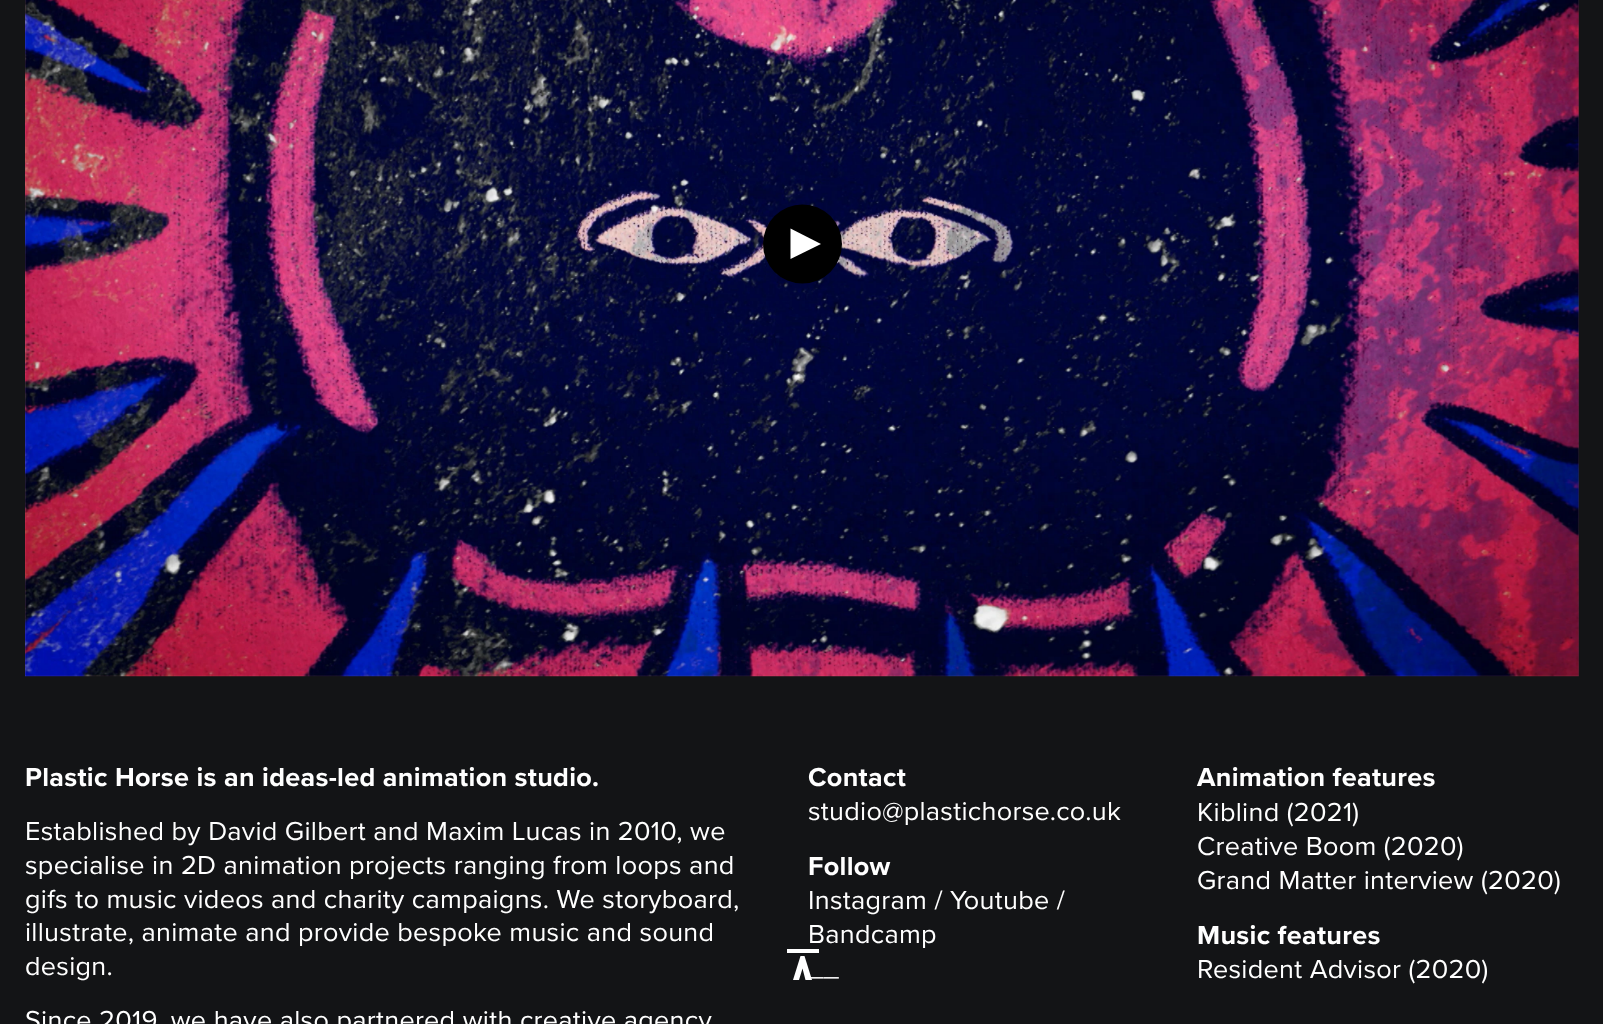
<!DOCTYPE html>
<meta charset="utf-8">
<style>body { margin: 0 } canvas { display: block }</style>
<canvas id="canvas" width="1603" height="1024"></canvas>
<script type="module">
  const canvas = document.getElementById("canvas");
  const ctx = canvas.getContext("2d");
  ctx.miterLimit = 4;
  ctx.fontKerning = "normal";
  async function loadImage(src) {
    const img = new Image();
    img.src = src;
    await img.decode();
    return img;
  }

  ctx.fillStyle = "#131416";
  ctx.fillRect(0, 0, 1603, 1024);
  ctx.drawImage(await loadImage("img1.png"), 25, 0, 1554, 677);
  ctx.fillStyle = "#000000";
  ctx.beginPath();
  ctx.arc(802.5, 244, 39.5, 0, Math.PI * 2);
  ctx.fill();
  ctx.fillStyle = "#ffffff";
  ctx.beginPath();
  ctx.moveTo(790.5, 259);
  ctx.lineTo(790.5, 228.5);
  ctx.lineTo(821, 244);
  ctx.closePath();
  ctx.fill();
  ctx.letterSpacing = "0.3px";
  ctx.font = "bold 27px Proxima Nova";
  ctx.fillText("Plastic Horse is an ideas-led animation studio.", 25, 786);
  ctx.font = "27px Proxima Nova";
  ctx.fillText("Established by David Gilbert and Maxim Lucas in 2010, we", 25, 840);
  ctx.fillText("specialise in 2D animation projects ranging from loops and", 25, 874);
  ctx.fillText("gifs to music videos and charity campaigns. We storyboard,", 25, 908);
  ctx.fillText("illustrate, animate and provide bespoke music and sound", 25, 941);
  ctx.fillText("design.", 25, 975);
  ctx.fillText("Since 2019, we have also partnered with creative agency", 25, 1029);
  ctx.font = "bold 27px Proxima Nova";
  ctx.fillText("Contact", 808, 786);
  ctx.font = "27px Proxima Nova";
  ctx.fillText("studio@plastichorse.co.uk", 808, 820);
  ctx.font = "bold 27px Proxima Nova";
  ctx.fillText("Follow", 808, 875);
  ctx.font = "27px Proxima Nova";
  ctx.fillText("Instagram / Youtube /", 808, 909);
  ctx.fillText("Bandcamp", 808, 943);
  ctx.fillText("__", 808, 976);
  ctx.font = "bold 27px Proxima Nova";
  ctx.fillText("Animation features", 1197, 786);
  ctx.font = "27px Proxima Nova";
  ctx.fillText("Kiblind (2021)", 1197, 821);
  ctx.fillText("Creative Boom (2020)", 1197, 855);
  ctx.fillText("Grand Matter interview (2020)", 1197, 889);
  ctx.font = "bold 27px Proxima Nova";
  ctx.fillText("Music features", 1197, 944);
  ctx.font = "27px Proxima Nova";
  ctx.fillText("Resident Advisor (2020)", 1197, 978);
  ctx.fillRect(787, 949, 32, 4);
  ctx.beginPath();
  ctx.moveTo(793, 980);
  ctx.lineTo(800.5, 956);
  ctx.lineTo(804.5, 956);
  ctx.lineTo(812, 980);
  ctx.lineTo(805.5, 980);
  ctx.lineTo(802.5, 968.5);
  ctx.lineTo(799, 980);
  ctx.closePath();
  ctx.fill();
</script>
